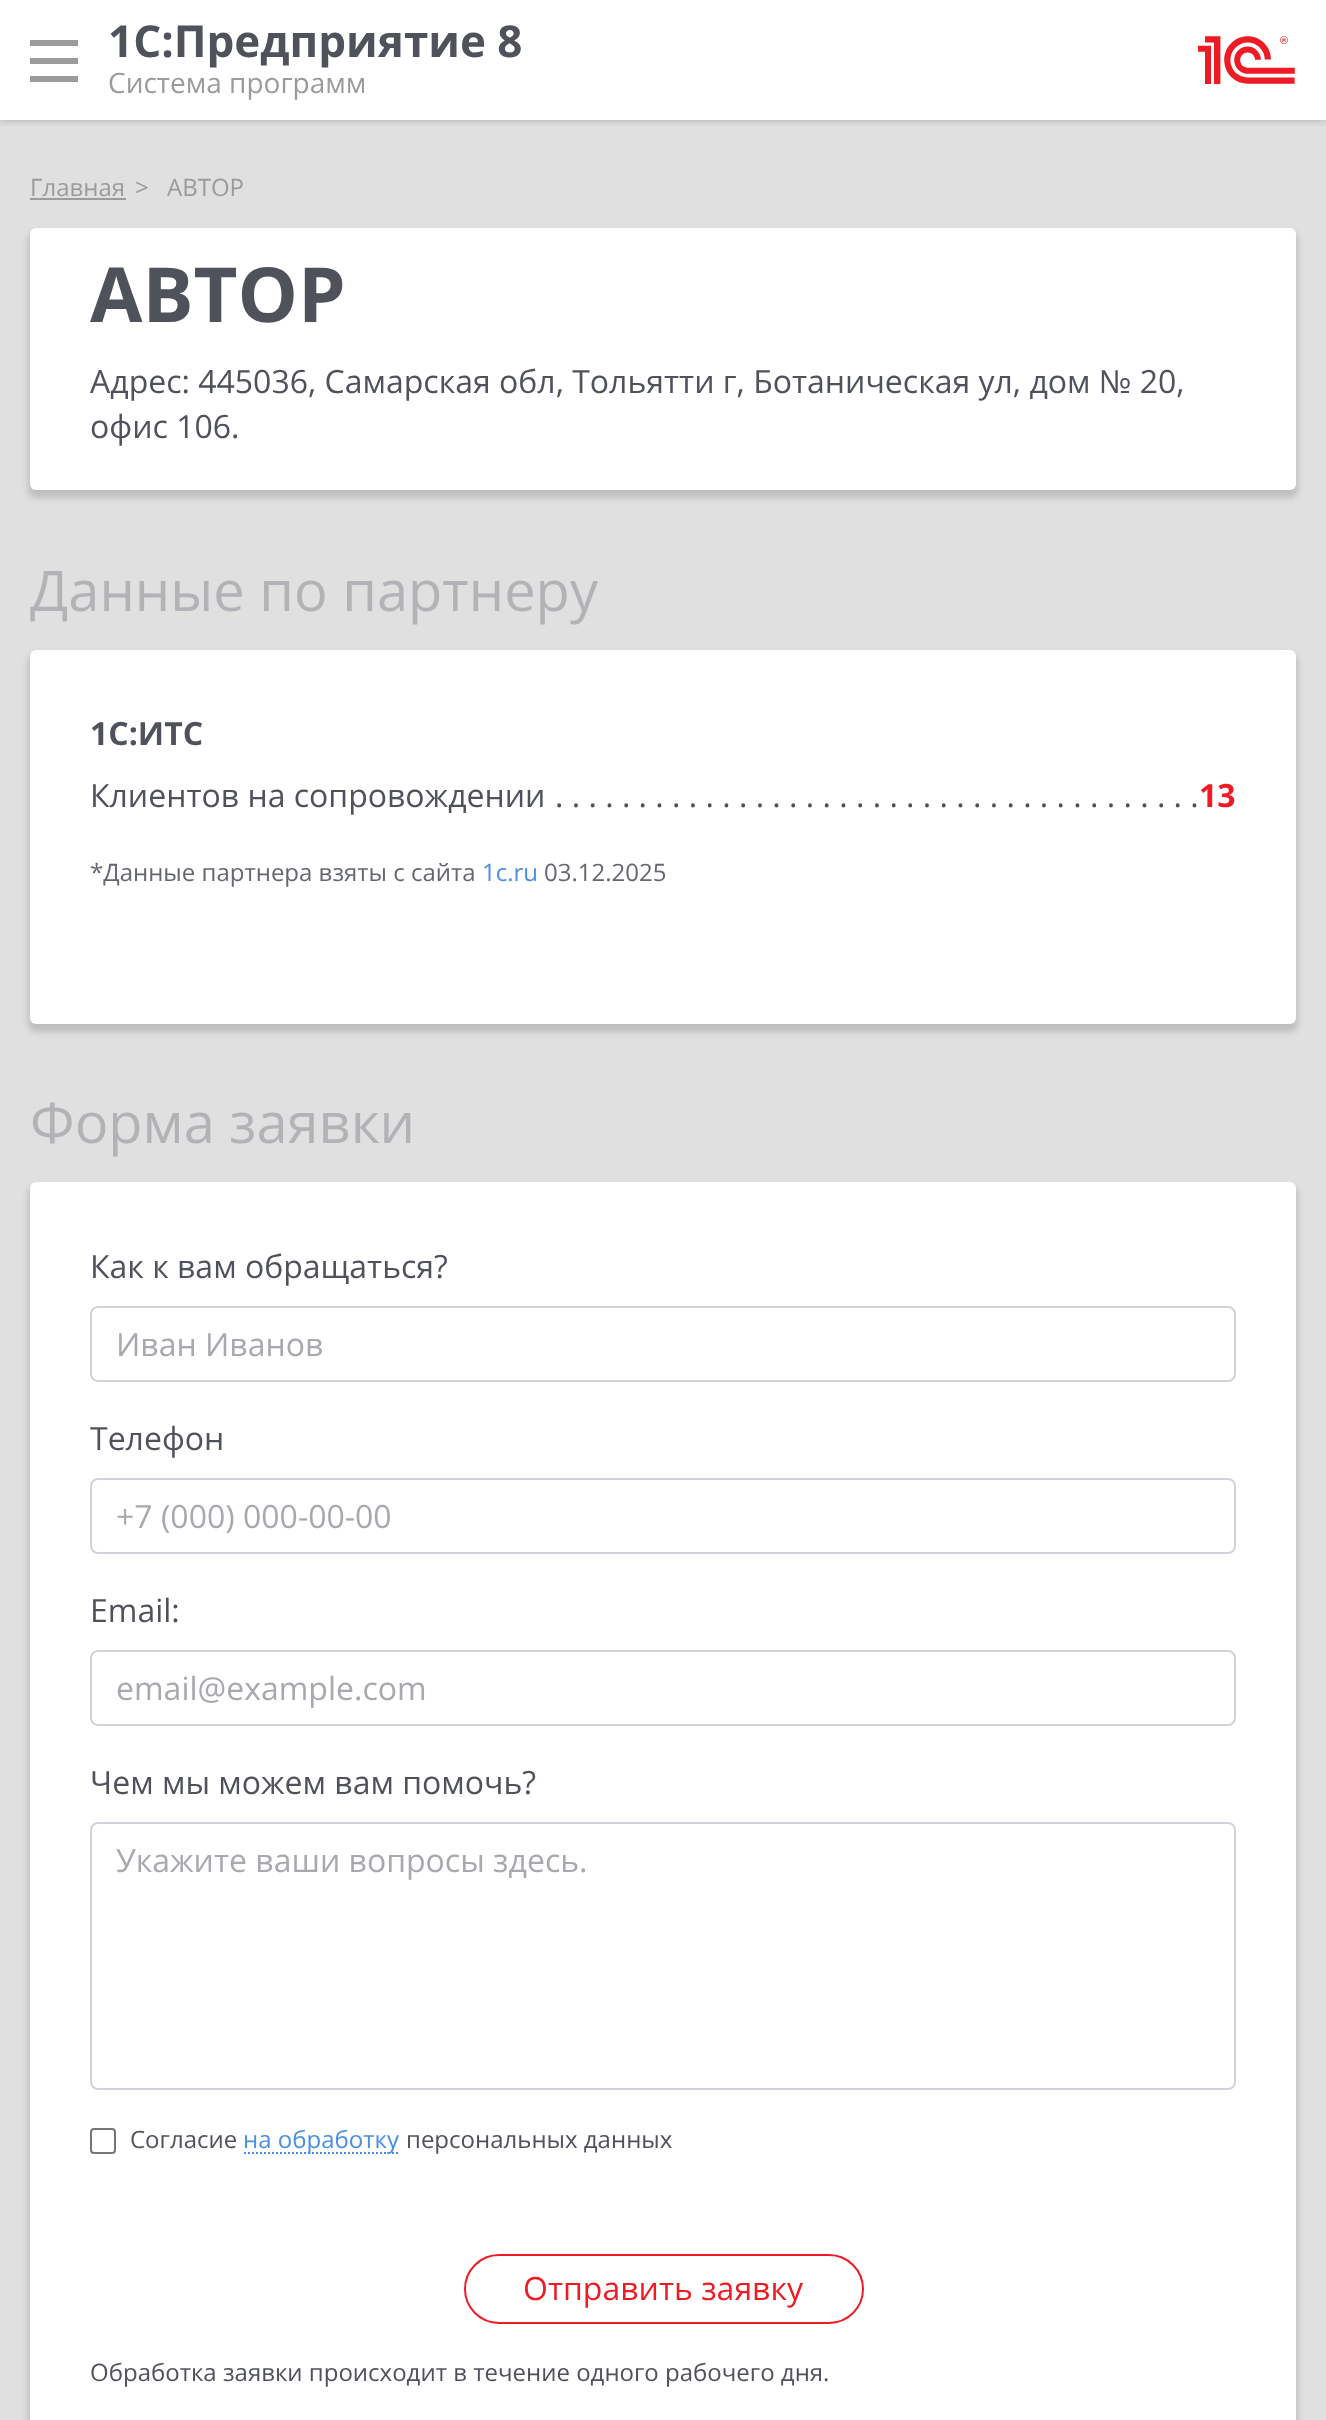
<!DOCTYPE html>
<meta charset="utf-8">
<style>body { margin: 0 } canvas { display: block }</style>
<canvas id="canvas" width="1326" height="2420"></canvas>
<script type="module">
  const canvas = document.getElementById("canvas");
  const ctx = canvas.getContext("2d");
  ctx.miterLimit = 4;
  ctx.fontKerning = "normal";
  async function loadImage(src) {
    const img = new Image();
    img.src = src;
    await img.decode();
    return img;
  }

  ctx.fillStyle = "#ffffff";
  ctx.fillRect(0, 0, 1326, 2420);
  ctx.fillStyle = "#e0e0e0";
  ctx.fillRect(0, 120, 1326, 2300);
  ctx.save();
  ctx.beginPath();
  ctx.rect(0, 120, 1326, 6);
  ctx.clip();
  ctx.fillStyle = "rgba(0, 0, 0, 0.25)";
  ctx.filter = "blur(4px)";
  ctx.beginPath();
  ctx.rect(0, 0, 1326, 120);
  ctx.fill();
  ctx.filter = "none";
  ctx.restore();
  ctx.drawImage(await loadImage("img1.png"), 30, 40, 48, 42);
  ctx.font = "bold 44px Open Sans";
  ctx.fillStyle = "#50525b";
  ctx.fillText("1С:Предприятие 8", 108, 57);
  ctx.font = "28px Open Sans";
  ctx.fillStyle = "#9b9b9b";
  ctx.fillText("Система программ", 108, 93);
  ctx.drawImage(await loadImage("img2.png"), 1198, 36, 97, 48);
  ctx.font = "24px Open Sans";
  ctx.fillText("Главная", 30, 196);
  ctx.fillRect(30, 198, 96, 2);
  ctx.fillText(">", 135, 196);
  ctx.fillText("АВТОР", 167, 196);
  ctx.fillStyle = "rgba(0, 0, 0, 0.15)";
  ctx.filter = "blur(3px)";
  ctx.beginPath();
  ctx.roundRect(28, 232, 1270, 266, 8);
  ctx.fill();
  ctx.filter = "none";
  ctx.fillStyle = "#ffffff";
  ctx.beginPath();
  ctx.roundRect(30, 228, 1266, 262, 6);
  ctx.fill();
  ctx.font = "bold 76px Open Sans";
  ctx.fillStyle = "#50525b";
  ctx.fillText("АВТОР", 90, 322);
  ctx.font = "32px Open Sans";
  ctx.fillText("Адрес: 445036, Самарская обл, Тольятти г, Ботаническая ул, дом № 20,", 90, 393);
  ctx.fillText("офис 106.", 90, 438);
  ctx.font = "56px Open Sans";
  ctx.fillStyle = "#b1b3b7";
  ctx.fillText("Данные по партнеру", 30, 611);
  ctx.fillStyle = "rgba(0, 0, 0, 0.15)";
  ctx.filter = "blur(3px)";
  ctx.beginPath();
  ctx.roundRect(28, 654, 1270, 378, 8);
  ctx.fill();
  ctx.filter = "none";
  ctx.fillStyle = "#ffffff";
  ctx.beginPath();
  ctx.roundRect(30, 650, 1266, 374, 6);
  ctx.fill();
  ctx.font = "bold 32px Open Sans";
  ctx.fillStyle = "#50525b";
  ctx.fillText("1С:ИТС", 90, 745);
  ctx.font = "32px Open Sans";
  ctx.fillText("Клиентов на сопровождении", 90, 807);
  ctx.fillText(". . . . . . . . . . . . . . . . . . . . . . . . . . . . . . . . . . . . . . .", 555, 807);
  ctx.font = "bold 32px Open Sans";
  ctx.fillStyle = "#ed1c24";
  ctx.fillText("13", 1199, 807);
  ctx.font = "24px Open Sans";
  ctx.fillStyle = "#646770";
  ctx.fillText("*Данные партнера взяты с сайта", 90, 881);
  ctx.fillStyle = "#4a90e2";
  ctx.fillText("1c.ru", 482, 881);
  ctx.fillStyle = "#646770";
  ctx.fillText("03.12.2025", 544, 881);
  ctx.font = "56px Open Sans";
  ctx.fillStyle = "#b1b3b7";
  ctx.fillText("Форма заявки", 30, 1143);
  ctx.fillStyle = "rgba(0, 0, 0, 0.15)";
  ctx.filter = "blur(3px)";
  ctx.beginPath();
  ctx.roundRect(28, 1186, 1270, 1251, 8);
  ctx.fill();
  ctx.filter = "none";
  ctx.fillStyle = "#ffffff";
  ctx.beginPath();
  ctx.roundRect(30, 1182, 1266, 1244, 6);
  ctx.fill();
  ctx.font = "32px Open Sans";
  ctx.fillStyle = "#50525b";
  ctx.fillText("Как к вам обращаться?", 90, 1278);
  ctx.beginPath();
  ctx.roundRect(91, 1307, 1144, 74, 7);
  ctx.strokeStyle = "#ced4da";
  ctx.lineWidth = 2;
  ctx.stroke();
  ctx.fillStyle = "#a8a9ae";
  ctx.fillText("Иван Иванов", 116, 1356);
  ctx.fillStyle = "#50525b";
  ctx.fillText("Телефон", 90, 1450);
  ctx.beginPath();
  ctx.roundRect(91, 1479, 1144, 74, 7);
  ctx.stroke();
  ctx.fillStyle = "#a8a9ae";
  ctx.fillText("+7 (000) 000-00-00", 116, 1528);
  ctx.fillStyle = "#50525b";
  ctx.fillText("Email:", 90, 1622);
  ctx.beginPath();
  ctx.roundRect(91, 1651, 1144, 74, 7);
  ctx.stroke();
  ctx.fillStyle = "#a8a9ae";
  ctx.fillText("email@example.com", 116, 1700);
  ctx.fillStyle = "#50525b";
  ctx.fillText("Чем мы можем вам помочь?", 90, 1794);
  ctx.beginPath();
  ctx.roundRect(91, 1823, 1144, 266, 7);
  ctx.stroke();
  ctx.fillStyle = "#a8a9ae";
  ctx.fillText("Укажите ваши вопросы здесь.", 116, 1872);
  ctx.beginPath();
  ctx.roundRect(91, 2129, 24, 24, 3);
  ctx.strokeStyle = "#767676";
  ctx.stroke();
  ctx.font = "24px Open Sans";
  ctx.fillStyle = "#50525b";
  ctx.fillText("Согласие", 130, 2148);
  ctx.beginPath();
  ctx.moveTo(244, 2153);
  ctx.lineTo(400, 2153);
  ctx.strokeStyle = "#4a90e2";
  ctx.setLineDash([2, 2]);
  ctx.stroke();
  ctx.fillStyle = "#4a90e2";
  ctx.fillText("на обработку", 243, 2148);
  ctx.fillStyle = "#50525b";
  ctx.fillText("персональных данных", 406, 2148);
  ctx.beginPath();
  ctx.roundRect(465, 2255, 398, 68, 34);
  ctx.strokeStyle = "#ed1c24";
  ctx.setLineDash([]);
  ctx.stroke();
  ctx.font = "32px Open Sans";
  ctx.fillStyle = "#ed1c24";
  ctx.fillText("Отправить заявку", 523, 2300);
  ctx.font = "24px Open Sans";
  ctx.fillStyle = "#50525b";
  ctx.fillText("Обработка заявки происходит в течение одного рабочего дня.", 90, 2381);
</script>
